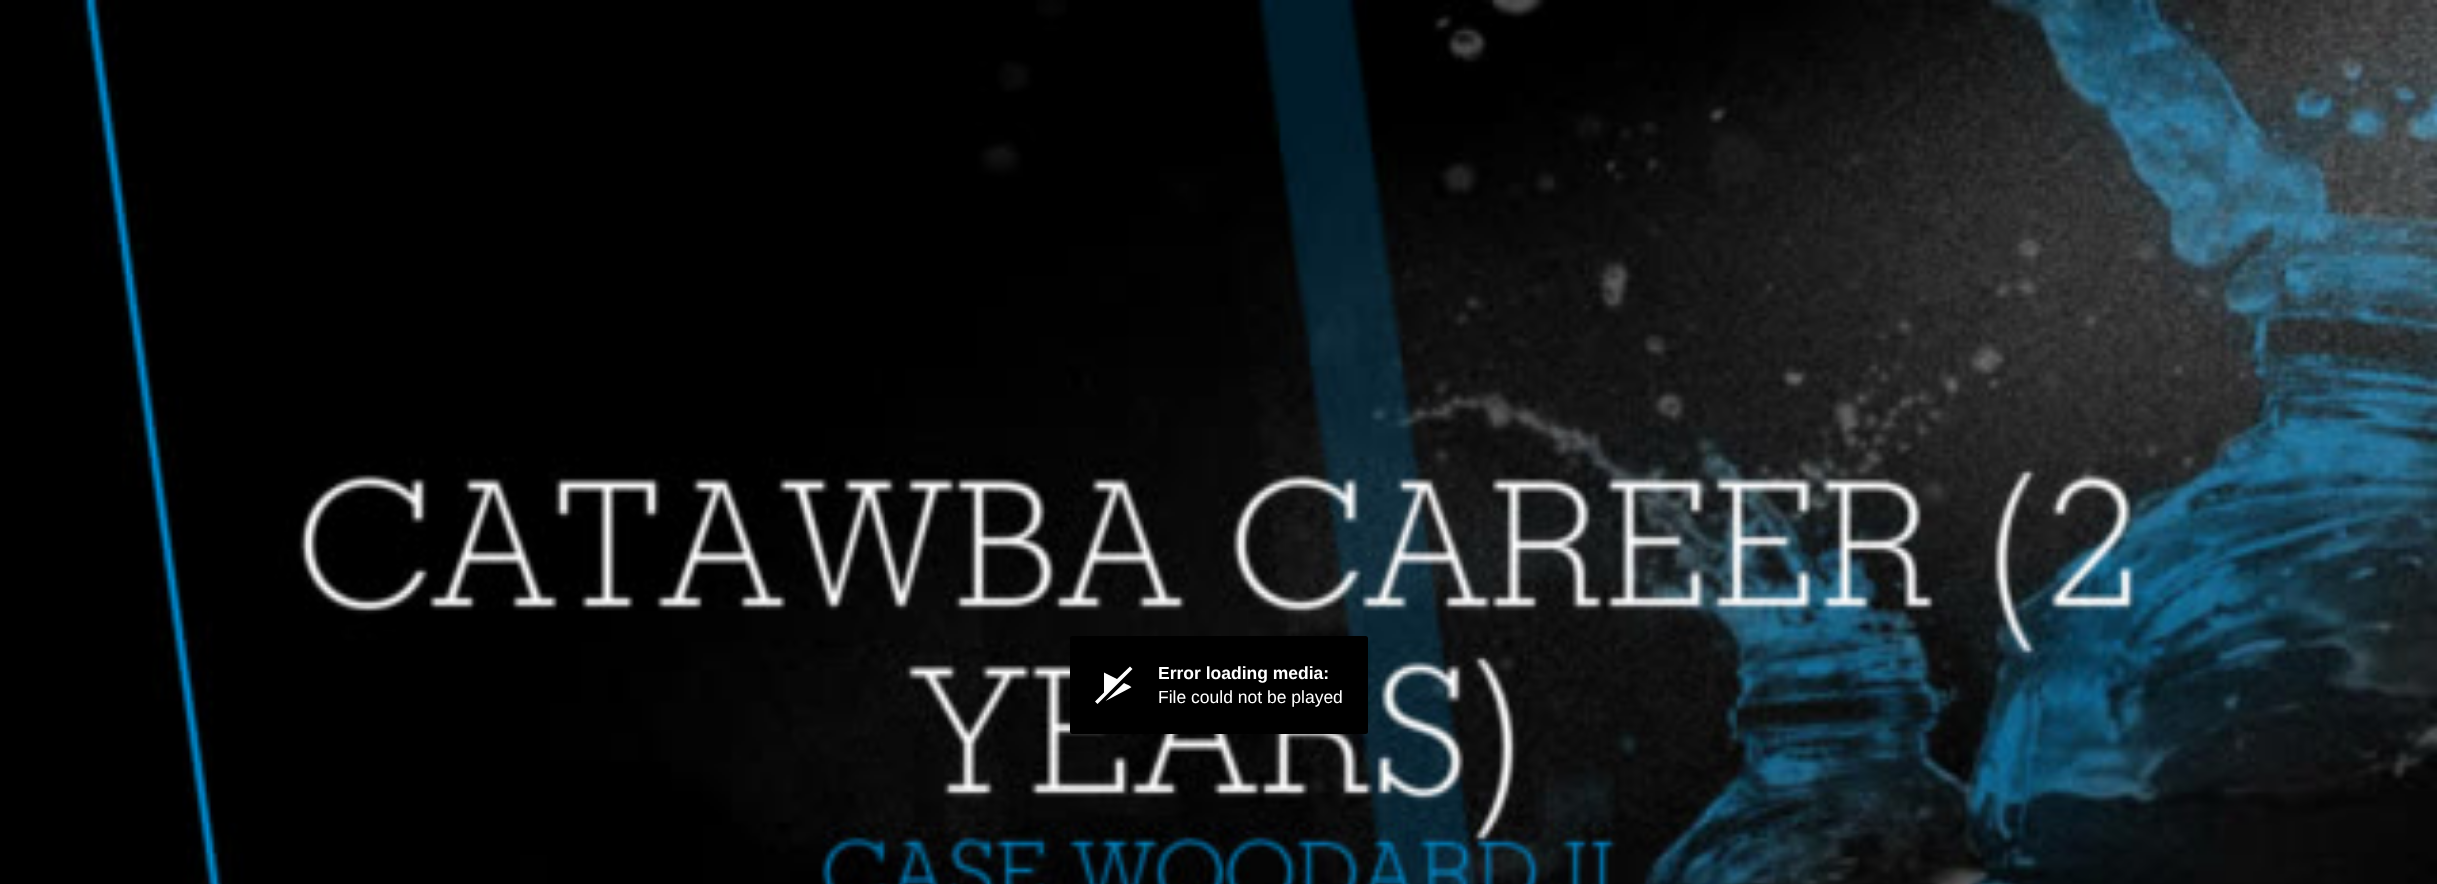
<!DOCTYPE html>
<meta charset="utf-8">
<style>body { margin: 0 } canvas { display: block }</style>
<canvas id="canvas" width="2437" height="884"></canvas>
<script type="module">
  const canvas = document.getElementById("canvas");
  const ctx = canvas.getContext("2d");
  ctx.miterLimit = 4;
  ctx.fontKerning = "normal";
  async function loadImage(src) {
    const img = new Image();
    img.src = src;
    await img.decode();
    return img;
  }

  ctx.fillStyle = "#ffffff";
  ctx.fillRect(0, 0, 2437, 884);
  ctx.drawImage(await loadImage("img1.png"), 0, 0, 2437, 884);
  ctx.fillStyle = "#000000";
  ctx.beginPath();
  ctx.roundRect(1070, 636, 298, 98, 2.5);
  ctx.fill();
  ctx.fillStyle = "#ffffff";
  ctx.beginPath();
  ctx.moveTo(1131, 687.5);
  ctx.lineTo(1105.5, 701);
  ctx.lineTo(1124, 683);
  ctx.bezierCurveTo(1131, 686.5, 1132, 687, 1131, 687.5);
  ctx.closePath();
  ctx.moveTo(1130, 666.5);
  ctx.lineTo(1117, 679);
  ctx.lineTo(1104, 672.5);
  ctx.lineTo(1104, 692.5);
  ctx.lineTo(1095, 701.5);
  ctx.lineTo(1097.5, 704);
  ctx.lineTo(1132.5, 669);
  ctx.closePath();
  ctx.fill();
  ctx.font = "bold 17.5px Liberation Sans";
  ctx.fillText("Error loading media:", 1158, 679);
  ctx.font = "17.5px Liberation Sans";
  ctx.fillText("File could not be played", 1158, 703);
</script>
